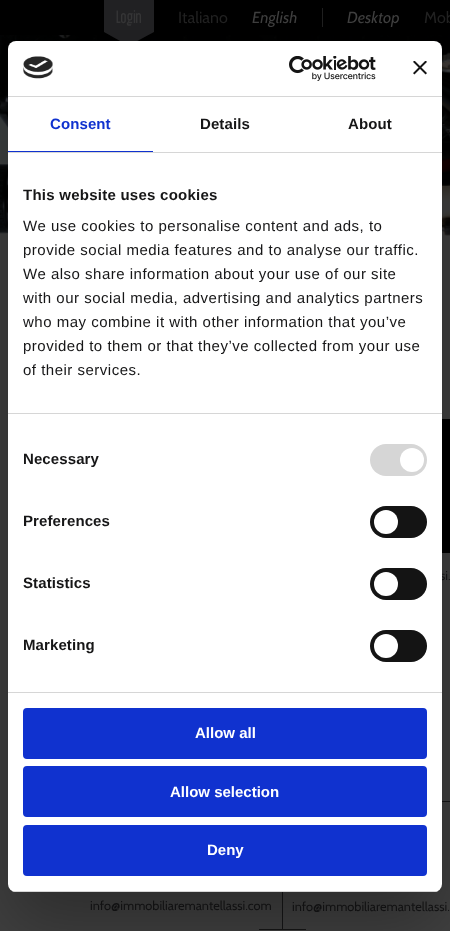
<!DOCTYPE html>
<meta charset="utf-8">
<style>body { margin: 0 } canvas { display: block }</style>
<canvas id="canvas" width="450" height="931"></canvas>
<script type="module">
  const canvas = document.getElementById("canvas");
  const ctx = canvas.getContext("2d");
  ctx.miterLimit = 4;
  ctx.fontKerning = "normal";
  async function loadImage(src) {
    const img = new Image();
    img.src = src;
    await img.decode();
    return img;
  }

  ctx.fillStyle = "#404040";
  ctx.fillRect(0, 0, 450, 931);
  ctx.drawImage(await loadImage("img1.png"), 0, 35, 450, 218);
  ctx.fillStyle = "#000000";
  ctx.fillRect(0, 0, 450, 35);
  ctx.fillStyle = "#222224";
  ctx.beginPath();
  ctx.moveTo(104, -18);
  ctx.lineTo(129, -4);
  ctx.lineTo(129, 46);
  ctx.lineTo(104, 32);
  ctx.closePath();
  ctx.fill();
  ctx.beginPath();
  ctx.moveTo(128, -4);
  ctx.lineTo(154, -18);
  ctx.lineTo(154, 32);
  ctx.lineTo(128, 46);
  ctx.closePath();
  ctx.fill();
  ctx.font = "16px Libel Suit";
  ctx.fillStyle = "#363637";
  ctx.fillText("Login", 116, 23);
  ctx.font = "16px Cabin";
  ctx.fillStyle = "#222222";
  ctx.fillText("Italiano", 178, 23);
  ctx.font = "italic 16px Cabin";
  ctx.fillStyle = "#404040";
  ctx.fillText("English", 252, 23);
  ctx.fillText("Desktop", 347, 23);
  ctx.fillStyle = "#202020";
  ctx.fillRect(322, 8, 1, 19);
  ctx.font = "16px Cabin";
  ctx.fillStyle = "#222222";
  ctx.fillText("Mob", 424, 23);
  ctx.fillStyle = "#000000";
  ctx.fillRect(442, 419, 8, 134);
  ctx.font = "12.75px Cabin";
  ctx.fillStyle = "#161617";
  ctx.fillText("si.", 440, 580);
  ctx.fillRect(442, 801, 8, 1);
  ctx.fillText("info@immobiliaremantellassi.com", 90, 910);
  ctx.fillRect(259, 929, 47, 1);
  ctx.fillRect(282, 892, 1, 38);
  ctx.fillText("info@immobiliaremantellassi.", 292, 911);
  ctx.fillStyle = "rgba(0, 0, 0, 0.3)";
  ctx.filter = "blur(34px)";
  ctx.beginPath();
  ctx.roundRect(8, 73, 434, 851, 8);
  ctx.fill();
  ctx.filter = "none";
  ctx.fillStyle = "#ffffff";
  ctx.beginPath();
  ctx.roundRect(8, 41, 434, 851, 8);
  ctx.fill();
  ctx.fillStyle = "#d6d6d6";
  ctx.fillRect(8, 96, 434, 1);
  ctx.drawImage(await loadImage("img2.png"), 23, 56, 30, 23);
  ctx.drawImage(await loadImage("img3.png"), 289, 56, 87, 25);
  ctx.drawImage(await loadImage("img4.png"), 413, 61, 14, 14);
  ctx.fillRect(8, 152, 434, 1);
  ctx.fillStyle = "#1032cf";
  ctx.fillRect(8, 151, 145, 1);
  ctx.letterSpacing = "0.1px";
  ctx.font = "bold 15px Liberation Sans";
  ctx.fillText("Consent", 50, 129);
  ctx.fillStyle = "#161617";
  ctx.fillText("Details", 200, 129);
  ctx.fillText("About", 348, 129);
  ctx.fillStyle = "#d6d6d6";
  ctx.fillRect(8, 413, 434, 1);
  ctx.letterSpacing = "0.25px";
  ctx.fillStyle = "#161617";
  ctx.fillText("This website uses cookies", 23, 200);
  ctx.letterSpacing = "0.5px";
  ctx.font = "15px Liberation Sans";
  ctx.fillText("We use cookies to personalise content and ads, to", 23, 231);
  ctx.fillText("provide social media features and to analyse our traffic.", 23, 255);
  ctx.fillText("We also share information about your use of our site", 23, 279);
  ctx.fillText("with our social media, advertising and analytics partners", 23, 303);
  ctx.fillText("who may combine it with other information that you’ve", 23, 327);
  ctx.fillText("provided to them or that they’ve collected from your use", 23, 351);
  ctx.fillText("of their services.", 23, 375);
  ctx.fillStyle = "#d6d6d6";
  ctx.fillRect(8, 692, 434, 1);
  ctx.letterSpacing = "0.1px";
  ctx.font = "bold 15px Liberation Sans";
  ctx.fillStyle = "#161617";
  ctx.fillText("Necessary", 23, 464);
  ctx.fillStyle = "#d6d6d6";
  ctx.beginPath();
  ctx.roundRect(370, 444, 57, 32, 16);
  ctx.fill();
  ctx.fillStyle = "#ffffff";
  ctx.beginPath();
  ctx.arc(412, 460, 12, 0, Math.PI * 2);
  ctx.fill();
  ctx.fillStyle = "#161617";
  ctx.fillText("Preferences", 23, 526);
  ctx.fillStyle = "#141414";
  ctx.beginPath();
  ctx.roundRect(370, 506, 57, 32, 16);
  ctx.fill();
  ctx.fillStyle = "#ffffff";
  ctx.beginPath();
  ctx.arc(386, 522, 12, 0, Math.PI * 2);
  ctx.fill();
  ctx.fillStyle = "#161617";
  ctx.fillText("Statistics", 23, 588);
  ctx.fillStyle = "#141414";
  ctx.beginPath();
  ctx.roundRect(370, 568, 57, 32, 16);
  ctx.fill();
  ctx.fillStyle = "#ffffff";
  ctx.beginPath();
  ctx.arc(386, 584, 12, 0, Math.PI * 2);
  ctx.fill();
  ctx.fillStyle = "#161617";
  ctx.fillText("Marketing", 23, 650);
  ctx.fillStyle = "#141414";
  ctx.beginPath();
  ctx.roundRect(370, 630, 57, 32, 16);
  ctx.fill();
  ctx.fillStyle = "#ffffff";
  ctx.beginPath();
  ctx.arc(386, 646, 12, 0, Math.PI * 2);
  ctx.fill();
  ctx.save();
  ctx.beginPath();
  ctx.roundRect(8, 41, 434, 851, 8);
  ctx.clip();
  ctx.fillStyle = "#d6d6d6";
  ctx.fillRect(8, 891, 434, 1);
  ctx.restore();
  ctx.fillStyle = "#1032cf";
  ctx.beginPath();
  ctx.roundRect(24, 709, 402, 49, 3);
  ctx.fill();
  ctx.strokeStyle = "#1032cf";
  ctx.lineWidth = 2;
  ctx.stroke();
  ctx.letterSpacing = "0px";
  ctx.fillStyle = "#ffffff";
  ctx.fillText("Allow all", 195, 738);
  ctx.fillStyle = "#1032cf";
  ctx.beginPath();
  ctx.roundRect(24, 767, 402, 49, 3);
  ctx.fill();
  ctx.stroke();
  ctx.fillStyle = "#ffffff";
  ctx.fillText("Allow selection", 170, 797);
  ctx.fillStyle = "#1032cf";
  ctx.beginPath();
  ctx.roundRect(24, 826, 402, 49, 3);
  ctx.fill();
  ctx.stroke();
  ctx.fillStyle = "#ffffff";
  ctx.fillText("Deny", 207, 855);
</script>
